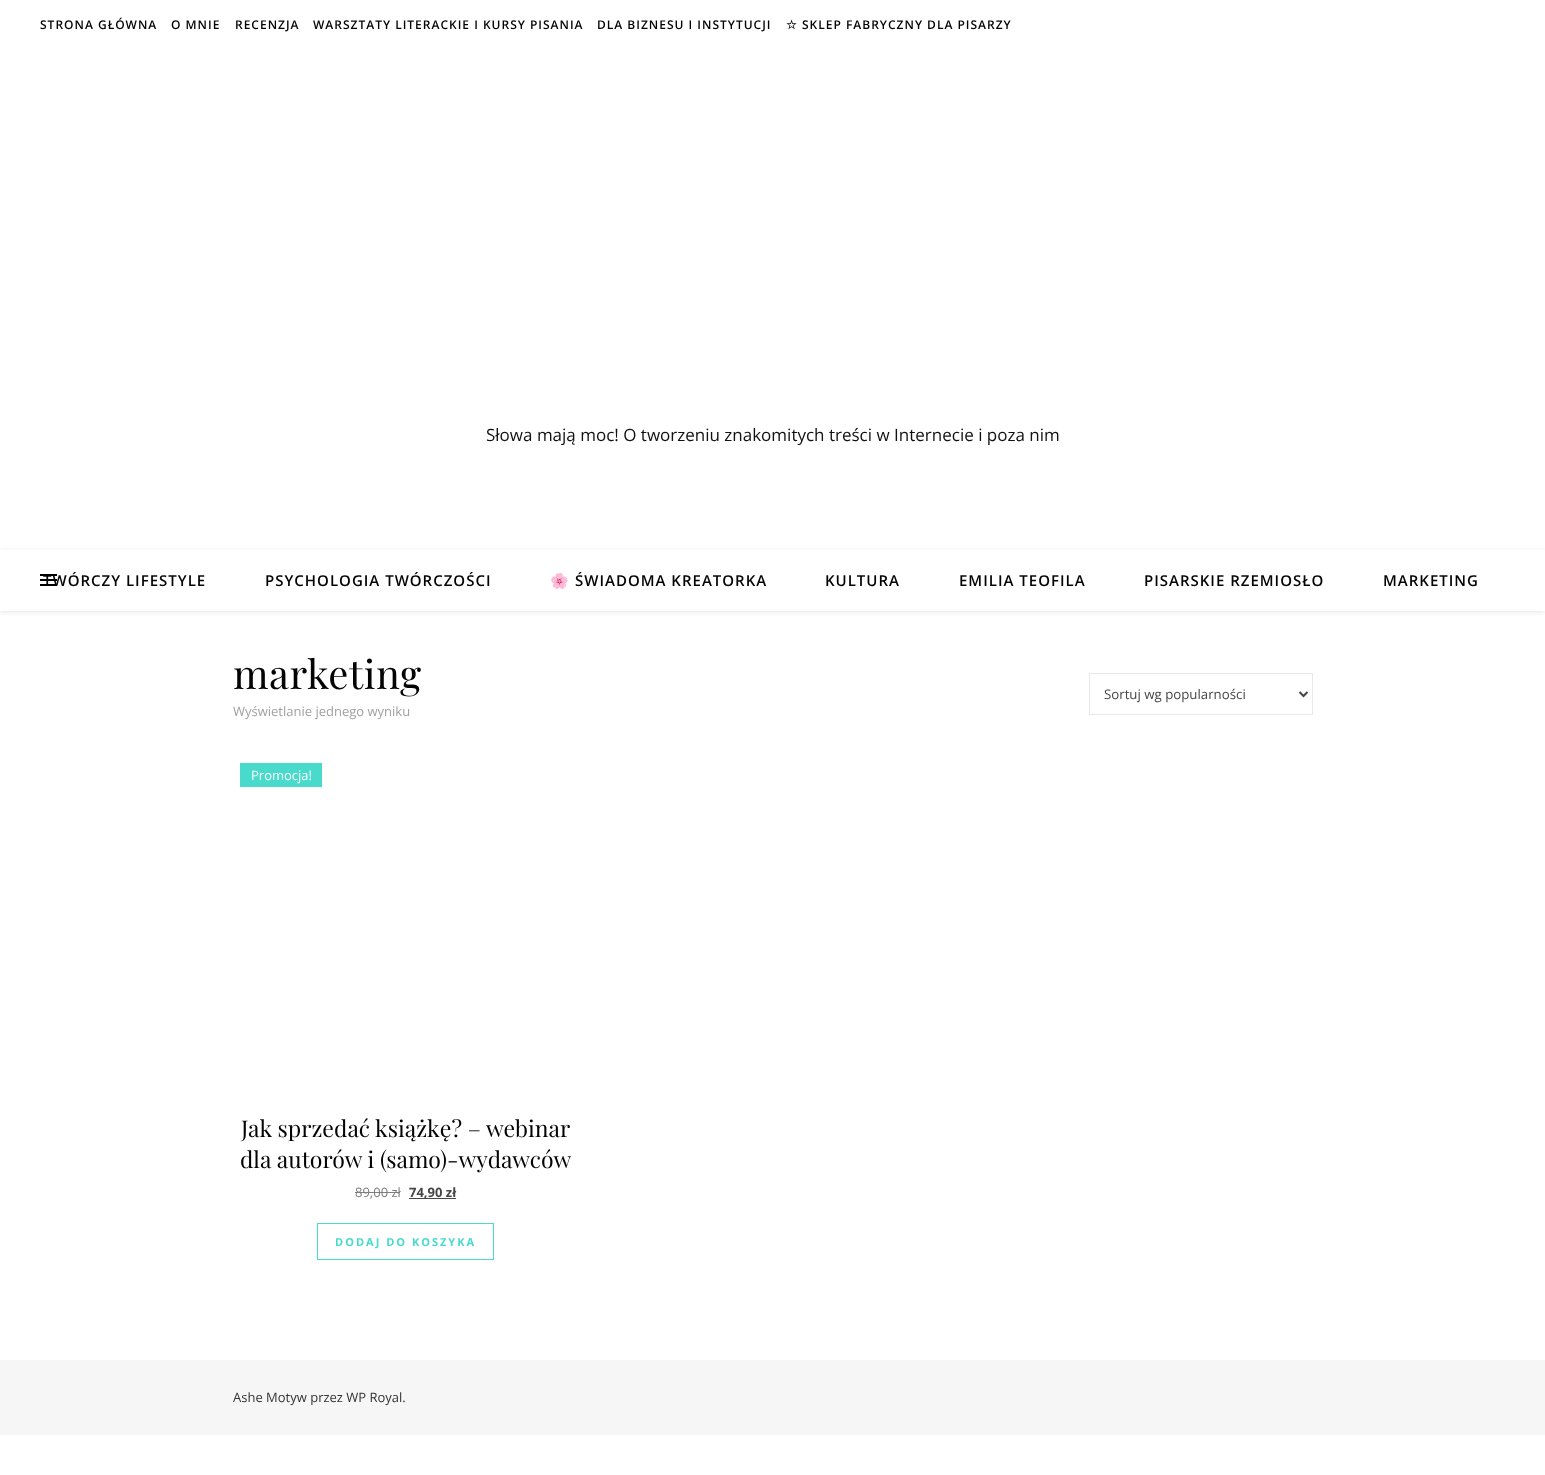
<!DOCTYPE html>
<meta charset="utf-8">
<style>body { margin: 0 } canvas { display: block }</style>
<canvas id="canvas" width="1545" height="1475"></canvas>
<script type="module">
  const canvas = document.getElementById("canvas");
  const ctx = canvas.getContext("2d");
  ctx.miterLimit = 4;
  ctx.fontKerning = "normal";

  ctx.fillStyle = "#ffffff";
  ctx.fillRect(0, 0, 1545, 1475);
  ctx.letterSpacing = "1px";
  ctx.font = "600 12px Open Sans";
  ctx.fillStyle = "#030303";
  ctx.fillText("STRONA GŁÓWNA", 40, 29);
  ctx.fillText("O MNIE", 171, 29);
  ctx.fillText("RECENZJA", 235, 29);
  ctx.fillText("WARSZTATY LITERACKIE I KURSY PISANIA", 313, 29);
  ctx.fillText("DLA BIZNESU I INSTYTUCJI", 597, 29);
  ctx.font = "bold 12px DejaVu Sans";
  ctx.fillText("☆", 786, 29);
  ctx.font = "600 12px Open Sans";
  ctx.fillText("SKLEP FABRYCZNY DLA PISARZY", 802, 29);
  ctx.letterSpacing = "0px";
  ctx.font = "17px Open Sans";
  ctx.fillStyle = "#111111";
  ctx.fillText("Słowa mają moc! O tworzeniu znakomitych treści w Internecie i poza nim", 486, 441);
  ctx.save();
  ctx.beginPath();
  ctx.moveTo(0, 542);
  ctx.lineTo(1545, 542);
  ctx.lineTo(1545, 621);
  ctx.lineTo(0, 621);
  ctx.closePath();
  ctx.moveTo(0, 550);
  ctx.lineTo(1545, 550);
  ctx.lineTo(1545, 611);
  ctx.lineTo(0, 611);
  ctx.closePath();
  ctx.clip("evenodd");
  ctx.fillStyle = "rgba(0, 0, 0, 0.1)";
  ctx.filter = "blur(2.5px)";
  ctx.beginPath();
  ctx.rect(0, 551, 1545, 61);
  ctx.fill();
  ctx.filter = "none";
  ctx.restore();
  ctx.letterSpacing = "1px";
  ctx.font = "600 15px Open Sans";
  ctx.fillStyle = "#030303";
  ctx.fillText("TWÓRCZY LIFESTYLE", 43, 586);
  ctx.fillText("PSYCHOLOGIA TWÓRCZOŚCI", 265, 586);
  ctx.font = "bold 15px Noto Color Emoji";
  ctx.fillText("🌸", 550, 586);
  ctx.font = "600 15px Open Sans";
  ctx.fillText("ŚWIADOMA KREATORKA", 575, 586);
  ctx.fillText("KULTURA", 825, 586);
  ctx.fillText("EMILIA TEOFILA", 959, 586);
  ctx.fillText("PISARSKIE RZEMIOSŁO", 1144, 586);
  ctx.fillText("MARKETING", 1383, 586);
  ctx.fillStyle = "#000000";
  ctx.fillRect(40, 574, 17, 2);
  ctx.fillRect(40, 579, 17, 2);
  ctx.fillRect(40, 584, 17, 2);
  ctx.letterSpacing = "0.5px";
  ctx.font = "40px Playfair Display";
  ctx.fillStyle = "#030303";
  ctx.fillText("marketing", 233, 689);
  ctx.strokeStyle = "#e8e8e8";
  ctx.strokeRect(1089.5, 673.5, 223, 41);
  ctx.beginPath();
  ctx.moveTo(1299.5, 692);
  ctx.lineTo(1303.5, 696);
  ctx.lineTo(1307.5, 692);
  ctx.strokeStyle = "#464646";
  ctx.lineWidth = 2;
  ctx.stroke();
  ctx.letterSpacing = "0px";
  ctx.font = "13.25px Open Sans";
  ctx.fillStyle = "#464646";
  ctx.fillText("Sortuj wg popularności", 1104, 699);
  ctx.font = "13px Open Sans";
  ctx.fillStyle = "#a1a1a1";
  ctx.fillText("Wyświetlanie jednego wyniku", 233, 716);
  ctx.fillStyle = "#48dbcc";
  ctx.fillRect(240, 763, 82, 24);
  ctx.fillStyle = "#ffffff";
  ctx.fillText("Promocja!", 251, 780);
  ctx.font = "23px Playfair Display";
  ctx.fillStyle = "#030303";
  ctx.fillText("Jak sprzedać książkę? – webinar", 241, 1137);
  ctx.fillText("dla autorów i (samo)-wydawców", 240, 1168);
  ctx.font = "13px Open Sans";
  ctx.fillStyle = "#7e7e7e";
  ctx.fillText("89,00 zł", 355, 1197);
  ctx.fillRect(355, 1192, 45, 1);
  ctx.fillStyle = "#464646";
  ctx.fillRect(409, 1198, 47, 1);
  ctx.font = "bold 13px Open Sans";
  ctx.fillText("74,90 zł", 409, 1197);
  ctx.strokeStyle = "#48dbcc";
  ctx.lineWidth = 1;
  ctx.strokeRect(317.5, 1223.5, 176, 36);
  ctx.letterSpacing = "2px";
  ctx.font = "bold 11px Open Sans";
  ctx.fillStyle = "#48dbcc";
  ctx.fillText("DODAJ DO KOSZYKA", 335, 1246);
  ctx.fillStyle = "#f6f6f6";
  ctx.fillRect(0, 1360, 1545, 75);
  ctx.letterSpacing = "0px";
  ctx.font = "13px Open Sans";
  ctx.fillStyle = "#333333";
  ctx.fillText("Ashe Motyw przez WP Royal.", 233, 1402);
</script>
